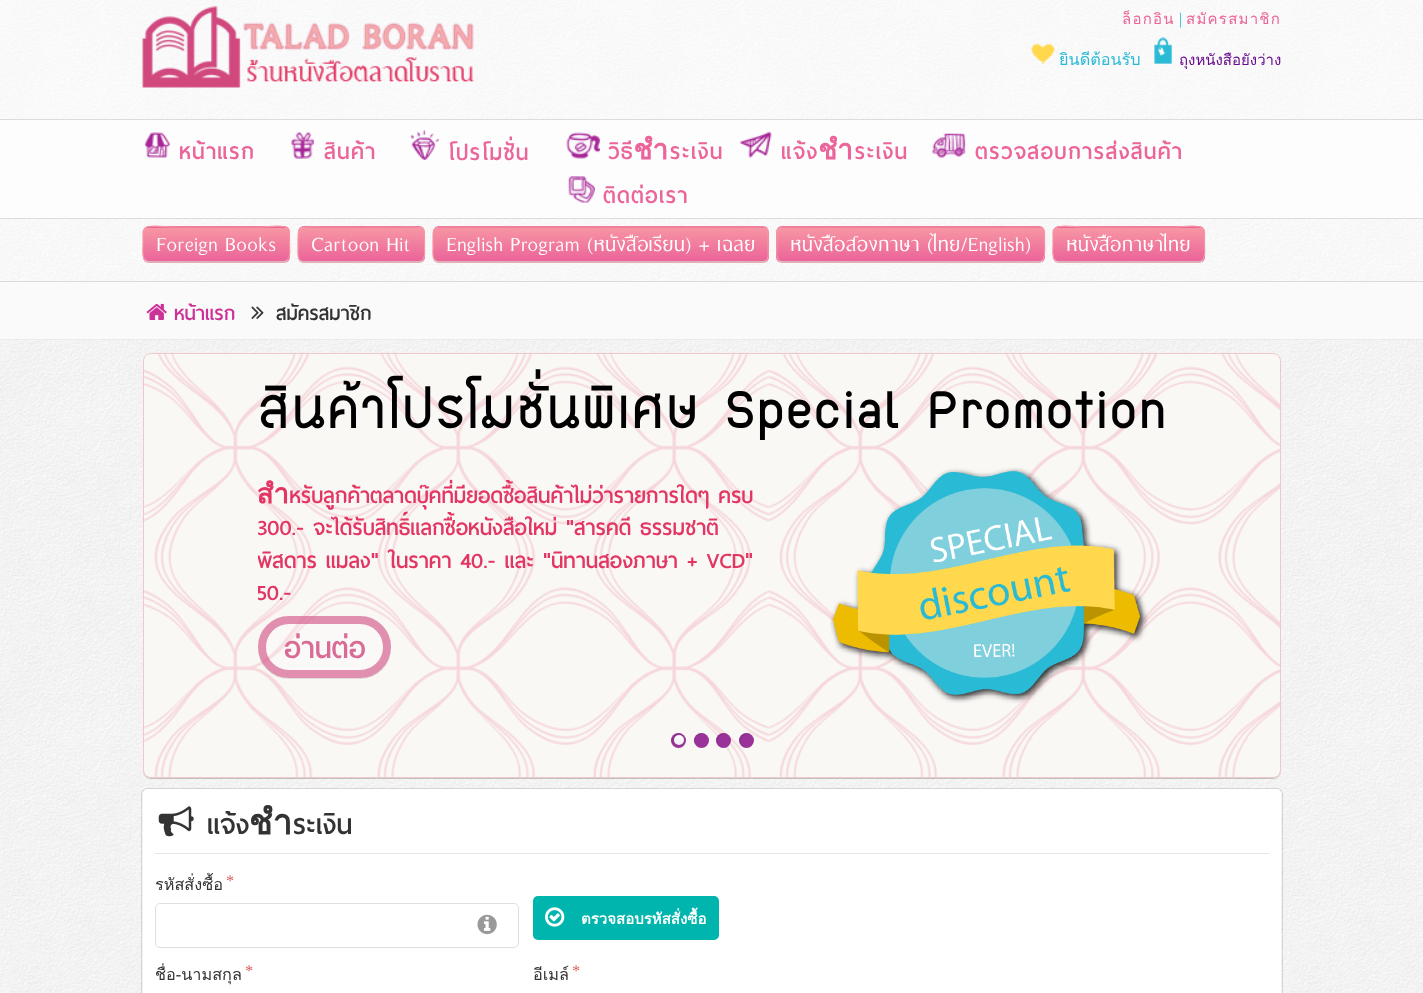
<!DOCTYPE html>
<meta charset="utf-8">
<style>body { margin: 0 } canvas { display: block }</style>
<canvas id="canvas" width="1423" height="993"></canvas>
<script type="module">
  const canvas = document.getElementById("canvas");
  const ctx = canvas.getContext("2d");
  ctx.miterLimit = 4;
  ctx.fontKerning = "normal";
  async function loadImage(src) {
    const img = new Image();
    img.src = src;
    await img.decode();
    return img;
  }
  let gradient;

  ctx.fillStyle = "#ffffff";
  ctx.fillRect(0, 0, 1423, 993);
  ctx.drawImage(await loadImage("img1.png"), 0, 0, 1423, 993);
  ctx.fillStyle = "rgba(255, 255, 255, 0.75)";
  ctx.fillRect(0, 0, 1423, 119);
  ctx.drawImage(await loadImage("img2.png"), 142, 6, 332, 82);
  ctx.letterSpacing = "1.25px";
  ctx.font = "15px Loma";
  ctx.fillStyle = "#eb649a";
  ctx.fillText("ล็อกอิน", 1122, 24);
  ctx.letterSpacing = "0px";
  ctx.font = "16.25px Liberation Serif";
  ctx.fillStyle = "#29bad5";
  ctx.fillText("|", 1179, 24);
  ctx.letterSpacing = "1.25px";
  ctx.font = "15px Loma";
  ctx.fillStyle = "#eb649a";
  ctx.fillText("สมัครสมาชิก", 1186, 24);
  ctx.drawImage(await loadImage("img3.png"), 1031, 43, 24, 21);
  ctx.letterSpacing = "0px";
  ctx.font = "16.25px Loma";
  ctx.fillStyle = "#29bad5";
  ctx.fillText("ยินดีต้อนรับ", 1059, 65);
  ctx.drawImage(await loadImage("img4.png"), 1154, 37, 19, 27);
  ctx.font = "15px Loma";
  ctx.fillStyle = "#670b8e";
  ctx.fillText("ถุงหนังสือยังว่าง", 1179, 65);
  ctx.fillStyle = "rgba(255, 255, 255, 0.9)";
  ctx.fillRect(0, 119, 1423, 100);
  ctx.fillStyle = "rgba(90, 90, 90, 0.2)";
  ctx.fillRect(0, 119, 1423, 1);
  ctx.fillRect(0, 218, 1423, 1);
  ctx.drawImage(await loadImage("img5.png"), 144, 132, 26, 26);
  ctx.letterSpacing = "1.25px";
  ctx.font = "bold 28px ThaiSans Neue";
  ctx.fillStyle = "#eb649a";
  ctx.fillText("หน้าแรก", 179, 159);
  ctx.drawImage(await loadImage("img6.png"), 291, 132, 23, 27);
  ctx.fillText("สินค้า", 324, 159);
  ctx.drawImage(await loadImage("img7.png"), 410, 130, 30, 30);
  ctx.fillText("โปรโมชั่น", 448, 160);
  ctx.drawImage(await loadImage("img8.png"), 566, 132, 34, 27);
  ctx.fillText("วิธีชำระเงิน", 608, 159);
  ctx.drawImage(await loadImage("img9.png"), 740, 131, 32, 27);
  ctx.fillText("แจ้งชำระเงิน", 781, 159);
  ctx.drawImage(await loadImage("img10.png"), 932, 133, 34, 25);
  ctx.fillText("ตรวจสอบการส่งสินค้า", 975, 159);
  ctx.drawImage(await loadImage("img11.png"), 568, 176, 27, 27);
  ctx.fillText("ติดต่อเรา", 603, 203);
  ctx.fillStyle = "rgba(255, 255, 255, 0.7)";
  ctx.fillRect(0, 219, 1423, 62);
  ctx.save();
  ctx.beginPath();
  ctx.roundRect(143, 226, 147, 37, 6);
  ctx.clip();
  gradient = ctx.createLinearGradient(216, 194, 216, 228);
  gradient.addColorStop(0, "#f796a3");
  gradient.addColorStop(1, "#eb649a");
  ctx.fillStyle = gradient;
  ctx.fillRect(143, 226, 147, 2);
  gradient = ctx.createLinearGradient(216, 228, 216, 261);
  gradient.addColorStop(0, "#f796a3");
  gradient.addColorStop(1, "#eb649a");
  ctx.fillStyle = gradient;
  ctx.fillRect(143, 228, 147, 33);
  gradient = ctx.createLinearGradient(216, 261, 216, 295);
  gradient.addColorStop(0, "#f796a3");
  gradient.addColorStop(1, "#eb649a");
  ctx.fillStyle = gradient;
  ctx.fillRect(143, 261, 147, 2);
  ctx.restore();
  ctx.beginPath();
  ctx.moveTo(287.5, 260);
  ctx.lineTo(284.5, 262);
  ctx.lineTo(148, 262);
  ctx.lineTo(145, 260);
  ctx.strokeStyle = "#cccccc";
  ctx.lineWidth = 1.2;
  ctx.stroke();
  ctx.beginPath();
  ctx.moveTo(145, 260);
  ctx.bezierCurveTo(141.5, 257, 143, 248, 143, 244.5);
  ctx.lineTo(143, 231.5);
  ctx.bezierCurveTo(145, 223, 163.5, 227, 171, 227);
  ctx.lineTo(261, 227);
  ctx.bezierCurveTo(269, 227, 287.5, 223, 289.5, 231.5);
  ctx.lineTo(289.5, 244.5);
  ctx.bezierCurveTo(289.5, 248, 291, 257, 287.5, 260);
  ctx.strokeStyle = "#f796a3";
  ctx.stroke();
  ctx.letterSpacing = "0px";
  ctx.font = "28.75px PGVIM";
  ctx.fillStyle = "#ffffff";
  ctx.fillText("Foreign Books", 156, 251);
  ctx.save();
  ctx.beginPath();
  ctx.roundRect(298, 226, 127, 37, 6);
  ctx.clip();
  gradient = ctx.createLinearGradient(361, 194, 361, 228);
  gradient.addColorStop(0, "#f796a3");
  gradient.addColorStop(1, "#eb649a");
  ctx.fillStyle = gradient;
  ctx.fillRect(298, 226, 127, 2);
  gradient = ctx.createLinearGradient(361, 228, 361, 261);
  gradient.addColorStop(0, "#f796a3");
  gradient.addColorStop(1, "#eb649a");
  ctx.fillStyle = gradient;
  ctx.fillRect(298, 228, 127, 33);
  gradient = ctx.createLinearGradient(361, 261, 361, 295);
  gradient.addColorStop(0, "#f796a3");
  gradient.addColorStop(1, "#eb649a");
  ctx.fillStyle = gradient;
  ctx.fillRect(298, 261, 127, 2);
  ctx.restore();
  ctx.beginPath();
  ctx.moveTo(422.5, 260);
  ctx.bezierCurveTo(421.5, 261.5, 420, 262, 419, 262);
  ctx.lineTo(304, 262);
  ctx.bezierCurveTo(302.5, 262, 301, 261.5, 300, 260);
  ctx.strokeStyle = "#cccccc";
  ctx.stroke();
  ctx.beginPath();
  ctx.moveTo(300, 260);
  ctx.bezierCurveTo(297, 257.5, 298, 252, 298, 248.5);
  ctx.bezierCurveTo(298, 223, 295.5, 227, 323, 227);
  ctx.lineTo(399.5, 227);
  ctx.bezierCurveTo(427, 227, 424.5, 223, 424.5, 248.5);
  ctx.bezierCurveTo(424.5, 252, 425.5, 257.5, 422.5, 260);
  ctx.strokeStyle = "#f796a3";
  ctx.stroke();
  ctx.fillText("Cartoon Hit", 311, 251);
  ctx.save();
  ctx.beginPath();
  ctx.roundRect(433, 226, 336, 37, 6);
  ctx.clip();
  gradient = ctx.createLinearGradient(601, 194, 601, 228);
  gradient.addColorStop(0, "#f796a3");
  gradient.addColorStop(1, "#eb649a");
  ctx.fillStyle = gradient;
  ctx.fillRect(433, 226, 336, 2);
  gradient = ctx.createLinearGradient(601, 227, 601, 261);
  gradient.addColorStop(0, "#f796a3");
  gradient.addColorStop(1, "#eb649a");
  ctx.fillStyle = gradient;
  ctx.fillRect(433, 228, 336, 33);
  gradient = ctx.createLinearGradient(601, 261, 601, 295);
  gradient.addColorStop(0, "#f796a3");
  gradient.addColorStop(1, "#eb649a");
  ctx.fillStyle = gradient;
  ctx.fillRect(433, 261, 336, 2);
  ctx.restore();
  ctx.beginPath();
  ctx.moveTo(766.5, 260);
  ctx.bezierCurveTo(765.5, 261.5, 764, 262, 762.5, 262);
  ctx.lineTo(439, 262);
  ctx.bezierCurveTo(437.5, 262, 436, 261.5, 435, 260);
  ctx.strokeStyle = "#cccccc";
  ctx.stroke();
  ctx.beginPath();
  ctx.moveTo(435, 260);
  ctx.bezierCurveTo(432, 257.5, 433, 252, 433, 248.5);
  ctx.lineTo(433, 236.5);
  ctx.bezierCurveTo(433, 232.5, 433, 227, 439, 227);
  ctx.lineTo(762.5, 227);
  ctx.bezierCurveTo(768, 227, 768, 232.5, 768, 236.5);
  ctx.lineTo(768, 248.5);
  ctx.bezierCurveTo(768, 252, 769.5, 257.5, 766.5, 260);
  ctx.strokeStyle = "#f796a3";
  ctx.stroke();
  ctx.fillText("English Program (หนังสือเรียน) + เฉลย", 446, 251);
  ctx.save();
  ctx.beginPath();
  ctx.roundRect(776, 226, 269, 37, 6);
  ctx.clip();
  gradient = ctx.createLinearGradient(911, 194, 911, 228);
  gradient.addColorStop(0, "#f796a3");
  gradient.addColorStop(1, "#eb649a");
  ctx.fillStyle = gradient;
  ctx.fillRect(776, 226, 269, 2);
  gradient = ctx.createLinearGradient(911, 228, 911, 261);
  gradient.addColorStop(0, "#f796a3");
  gradient.addColorStop(1, "#eb649a");
  ctx.fillStyle = gradient;
  ctx.fillRect(776, 228, 269, 33);
  gradient = ctx.createLinearGradient(911, 261, 911, 295);
  gradient.addColorStop(0, "#f796a3");
  gradient.addColorStop(1, "#eb649a");
  ctx.fillStyle = gradient;
  ctx.fillRect(776, 261, 269, 2);
  ctx.restore();
  ctx.beginPath();
  ctx.moveTo(1042.5, 260);
  ctx.bezierCurveTo(1041.5, 261.5, 1040, 262, 1039, 262);
  ctx.lineTo(782.5, 262);
  ctx.bezierCurveTo(781, 262, 779.5, 261.5, 778.5, 260);
  ctx.strokeStyle = "#cccccc";
  ctx.stroke();
  ctx.beginPath();
  ctx.moveTo(778.5, 260);
  ctx.bezierCurveTo(775.5, 257, 777, 244.5, 777, 240.5);
  ctx.bezierCurveTo(777, 236, 775.5, 227, 782.5, 227);
  ctx.lineTo(1039, 227);
  ctx.bezierCurveTo(1046, 227, 1044.5, 236, 1044.5, 240.5);
  ctx.bezierCurveTo(1044.5, 244.5, 1046, 257, 1042.5, 260);
  ctx.strokeStyle = "#f796a3";
  ctx.stroke();
  ctx.fillText("หนังสือสองภาษา (ไทย/English)", 790, 251);
  ctx.save();
  ctx.beginPath();
  ctx.roundRect(1053, 226, 152, 37, 6);
  ctx.clip();
  gradient = ctx.createLinearGradient(1129, 194, 1129, 228);
  gradient.addColorStop(0, "#f796a3");
  gradient.addColorStop(1, "#eb649a");
  ctx.fillStyle = gradient;
  ctx.fillRect(1053, 226, 152, 2);
  gradient = ctx.createLinearGradient(1129, 228, 1129, 261);
  gradient.addColorStop(0, "#f796a3");
  gradient.addColorStop(1, "#eb649a");
  ctx.fillStyle = gradient;
  ctx.fillRect(1053, 228, 152, 33);
  gradient = ctx.createLinearGradient(1129, 261, 1129, 295);
  gradient.addColorStop(0, "#f796a3");
  gradient.addColorStop(1, "#eb649a");
  ctx.fillStyle = gradient;
  ctx.fillRect(1053, 261, 152, 2);
  ctx.restore();
  ctx.beginPath();
  ctx.moveTo(1202.5, 260);
  ctx.bezierCurveTo(1201.5, 261.5, 1200, 262, 1199, 262);
  ctx.lineTo(1059, 262);
  ctx.bezierCurveTo(1057.5, 262, 1056, 261.5, 1055, 260);
  ctx.strokeStyle = "#cccccc";
  ctx.stroke();
  ctx.beginPath();
  ctx.moveTo(1055, 260);
  ctx.bezierCurveTo(1051.5, 257, 1053, 248, 1053, 244.5);
  ctx.lineTo(1053, 231.5);
  ctx.bezierCurveTo(1055, 223, 1074.5, 227, 1082, 227);
  ctx.lineTo(1175.5, 227);
  ctx.bezierCurveTo(1183, 227, 1202.5, 223, 1204.5, 231.5);
  ctx.lineTo(1204.5, 244.5);
  ctx.bezierCurveTo(1204.5, 248, 1206, 257, 1202.5, 260);
  ctx.strokeStyle = "#f796a3";
  ctx.stroke();
  ctx.fillText("หนังสือภาษาไทย", 1066, 251);
  ctx.fillStyle = "#fafafa";
  ctx.fillRect(0, 282, 1423, 57);
  ctx.fillStyle = "#dadada";
  ctx.fillRect(0, 281, 1423, 1);
  ctx.fillStyle = "#eaeaea";
  ctx.fillRect(0, 339, 1423, 1);
  ctx.drawImage(await loadImage("img12.png"), 146, 303, 21, 17);
  ctx.font = "bold 25px ThaiSans Neue";
  ctx.fillStyle = "#cc3399";
  ctx.fillText("หน้าแรก", 174, 320);
  ctx.drawImage(await loadImage("img13.png"), 251, 306, 13, 13);
  ctx.fillStyle = "#333333";
  ctx.fillText("สมัครสมาชิก", 276, 320);
  ctx.fillStyle = "rgba(253, 253, 253, 0.5)";
  ctx.fillRect(0, 340, 1423, 653);
  ctx.fillStyle = "#ffffff";
  ctx.filter = "blur(0.5px)";
  ctx.beginPath();
  ctx.roundRect(143, 353, 1138, 425, 8);
  ctx.fill();
  ctx.filter = "none";
  ctx.fillStyle = "rgba(0, 0, 0, 0.2)";
  ctx.filter = "blur(0.5px)";
  ctx.beginPath();
  ctx.roundRect(143, 354, 1138, 425, 8);
  ctx.fill();
  ctx.filter = "none";
  ctx.fillStyle = "#fcfcfc";
  ctx.beginPath();
  ctx.roundRect(143, 353, 1138, 425, 8);
  ctx.fill();
  ctx.drawImage(await loadImage("img14.png"), 142, 352, 1139, 426);
  ctx.beginPath();
  ctx.roundRect(143.5, 353.5, 1137, 424, 7.5);
  ctx.strokeStyle = "#eec8cd";
  ctx.lineWidth = 1;
  ctx.stroke();
  ctx.font = "bold 82.5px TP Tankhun";
  ctx.fillStyle = "#000000";
  ctx.fillText("สินค้าโปรโมชั่นพิเศษ Special Promotion", 257, 428);
  ctx.save();
  ctx.beginPath();
  ctx.rect(258, 479, 511, 125);
  ctx.clip();
  ctx.font = "bold 27.5px ThaiSans Neue";
  ctx.fillStyle = "#e23763";
  ctx.fillText("สำหรับลูกค้าตลาดบุ๊คที่มียอดซื้อสินค้าไม่ว่ารายการใดๆ ครบ", 257, 503);
  ctx.restore();
  ctx.font = "bold 27.5px ThaiSans Neue";
  ctx.fillStyle = "#e23763";
  ctx.fillText("300.- จะได้รับสิทธิ์แลกซื้อหนังสือใหม่ \"สารคดี ธรรมชาติ", 257, 535);
  ctx.save();
  ctx.beginPath();
  ctx.rect(258, 479, 511, 125);
  ctx.clip();
  ctx.fillText("พิสดาร แมลง\" ในราคา 40.- และ \"นิทานสองภาษา + VCD\"", 257, 568);
  ctx.restore();
  ctx.fillText("50.-", 257, 600);
  ctx.drawImage(await loadImage("img15.png"), 830, 467, 318, 236);
  ctx.save();
  ctx.beginPath();
  ctx.moveTo(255, 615);
  ctx.lineTo(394, 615);
  ctx.lineTo(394, 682);
  ctx.lineTo(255, 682);
  ctx.closePath();
  ctx.moveTo(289, 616);
  ctx.lineTo(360, 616);
  ctx.bezierCurveTo(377, 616, 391, 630, 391, 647);
  ctx.bezierCurveTo(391, 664, 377, 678, 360, 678);
  ctx.lineTo(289, 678);
  ctx.bezierCurveTo(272, 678, 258, 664, 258, 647);
  ctx.bezierCurveTo(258, 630, 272, 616, 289, 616);
  ctx.closePath();
  ctx.clip("evenodd");
  ctx.fillStyle = "rgba(0, 0, 0, 0.1)";
  ctx.filter = "blur(0.5px)";
  ctx.beginPath();
  ctx.roundRect(258, 618, 133, 61, 30.5);
  ctx.fill();
  ctx.filter = "none";
  ctx.restore();
  ctx.fillStyle = "rgba(255, 255, 255, 0.2)";
  ctx.beginPath();
  ctx.roundRect(258, 616, 133, 62, 31);
  ctx.fill();
  ctx.beginPath();
  ctx.roundRect(262, 620, 125, 54, 27);
  ctx.strokeStyle = "rgba(209, 72, 127, 0.6)";
  ctx.lineWidth = 8;
  ctx.stroke();
  ctx.font = "bold 37.5px ThaiSans Neue";
  ctx.fillStyle = "#d96b97";
  ctx.fillText("อ่านต่อ", 284, 658);
  ctx.fillStyle = "#993399";
  ctx.beginPath();
  ctx.arc(678.5, 740.5, 7.5, 0, Math.PI * 2);
  ctx.fill();
  ctx.fillStyle = "rgba(0, 0, 0, 0.1)";
  ctx.beginPath();
  ctx.moveTo(680, 734);
  ctx.lineTo(683, 734.5);
  ctx.bezierCurveTo(675, 728.5, 665.5, 741.5, 674.5, 747);
  ctx.bezierCurveTo(670.5, 743, 672.5, 734, 680, 734);
  ctx.closePath();
  ctx.fill();
  gradient = ctx.createLinearGradient(679, 735, 679, 745);
  gradient.addColorStop(0, "#ffffff");
  gradient.addColorStop(0.47, "#f6f6f6");
  gradient.addColorStop(1, "#ededed");
  ctx.fillStyle = gradient;
  ctx.beginPath();
  ctx.arc(679, 740, 5, 0, Math.PI * 2);
  ctx.fill();
  ctx.fillStyle = "#993399";
  ctx.beginPath();
  ctx.arc(701.5, 740.5, 7.5, 0, Math.PI * 2);
  ctx.fill();
  ctx.fillStyle = "rgba(0, 0, 0, 0.1)";
  ctx.beginPath();
  ctx.moveTo(702, 734);
  ctx.bezierCurveTo(705, 734, 707, 735, 708, 737);
  ctx.bezierCurveTo(702.5, 726.5, 687.5, 738.5, 696.5, 746);
  ctx.bezierCurveTo(693.5, 742, 695.5, 734, 702, 734);
  ctx.closePath();
  ctx.fill();
  ctx.fillStyle = "#993399";
  ctx.beginPath();
  ctx.arc(723.5, 740.5, 7.5, 0, Math.PI * 2);
  ctx.fill();
  ctx.fillStyle = "rgba(0, 0, 0, 0.1)";
  ctx.beginPath();
  ctx.moveTo(725, 734);
  ctx.lineTo(728, 734.5);
  ctx.bezierCurveTo(720, 728.5, 710.5, 741.5, 719.5, 747);
  ctx.bezierCurveTo(715.5, 743, 717.5, 734, 725, 734);
  ctx.closePath();
  ctx.fill();
  ctx.fillStyle = "#993399";
  ctx.beginPath();
  ctx.arc(746.5, 740.5, 7.5, 0, Math.PI * 2);
  ctx.fill();
  ctx.fillStyle = "rgba(0, 0, 0, 0.1)";
  ctx.beginPath();
  ctx.moveTo(748, 734);
  ctx.bezierCurveTo(749.5, 734, 750.5, 734.5, 751.5, 735);
  ctx.bezierCurveTo(743.5, 727.5, 733.5, 741.5, 742.5, 747);
  ctx.bezierCurveTo(738.5, 743, 740.5, 734, 748, 734);
  ctx.closePath();
  ctx.fill();
  ctx.beginPath();
  ctx.roundRect(141.5, 788.5, 1141, 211, 5.5);
  ctx.strokeStyle = "rgba(39, 41, 43, 0.15)";
  ctx.lineWidth = 1;
  ctx.stroke();
  ctx.fillStyle = "#ffffff";
  ctx.beginPath();
  ctx.roundRect(143, 789, 1138, 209, 5);
  ctx.fill();
  ctx.fillStyle = "#e6e6e6";
  ctx.fillRect(155, 853, 1114, 1);
  ctx.drawImage(await loadImage("img16.png"), 158, 806, 36, 31);
  ctx.font = "bold 35px ThaiSans Neue";
  ctx.fillStyle = "#333333";
  ctx.fillText("แจ้งชำระเงิน", 207, 834);
  ctx.font = "16.25px Loma";
  ctx.fillText("รหัสสั่งซื้อ", 155, 890);
  ctx.font = "16.25px Liberation Serif";
  ctx.fillStyle = "#d95c5c";
  ctx.fillText("*", 226, 886);
  ctx.beginPath();
  ctx.roundRect(155.5, 903.5, 363, 44, 4.5);
  ctx.strokeStyle = "#dfdfdf";
  ctx.stroke();
  ctx.drawImage(await loadImage("img17.png"), 477, 914, 20, 21);
  ctx.fillStyle = "#00b5ad";
  ctx.beginPath();
  ctx.roundRect(533, 896, 186, 44, 5);
  ctx.fill();
  ctx.drawImage(await loadImage("img18.png"), 545, 907, 20, 20);
  ctx.font = "bold 15px Loma";
  ctx.fillStyle = "#ffffff";
  ctx.fillText("ตรวจสอบรหัสสั่งซื้อ", 581, 924);
  ctx.font = "16.25px Loma";
  ctx.fillStyle = "#333333";
  ctx.fillText("ชื่อ-นามสกุล", 155, 980);
  ctx.font = "16.25px Liberation Serif";
  ctx.fillStyle = "#d95c5c";
  ctx.fillText("*", 245, 976);
  ctx.font = "16.25px Loma";
  ctx.fillStyle = "#333333";
  ctx.fillText("อีเมล์", 533, 980);
  ctx.font = "16.25px Liberation Serif";
  ctx.fillStyle = "#d95c5c";
  ctx.fillText("*", 572, 976);
</script>
